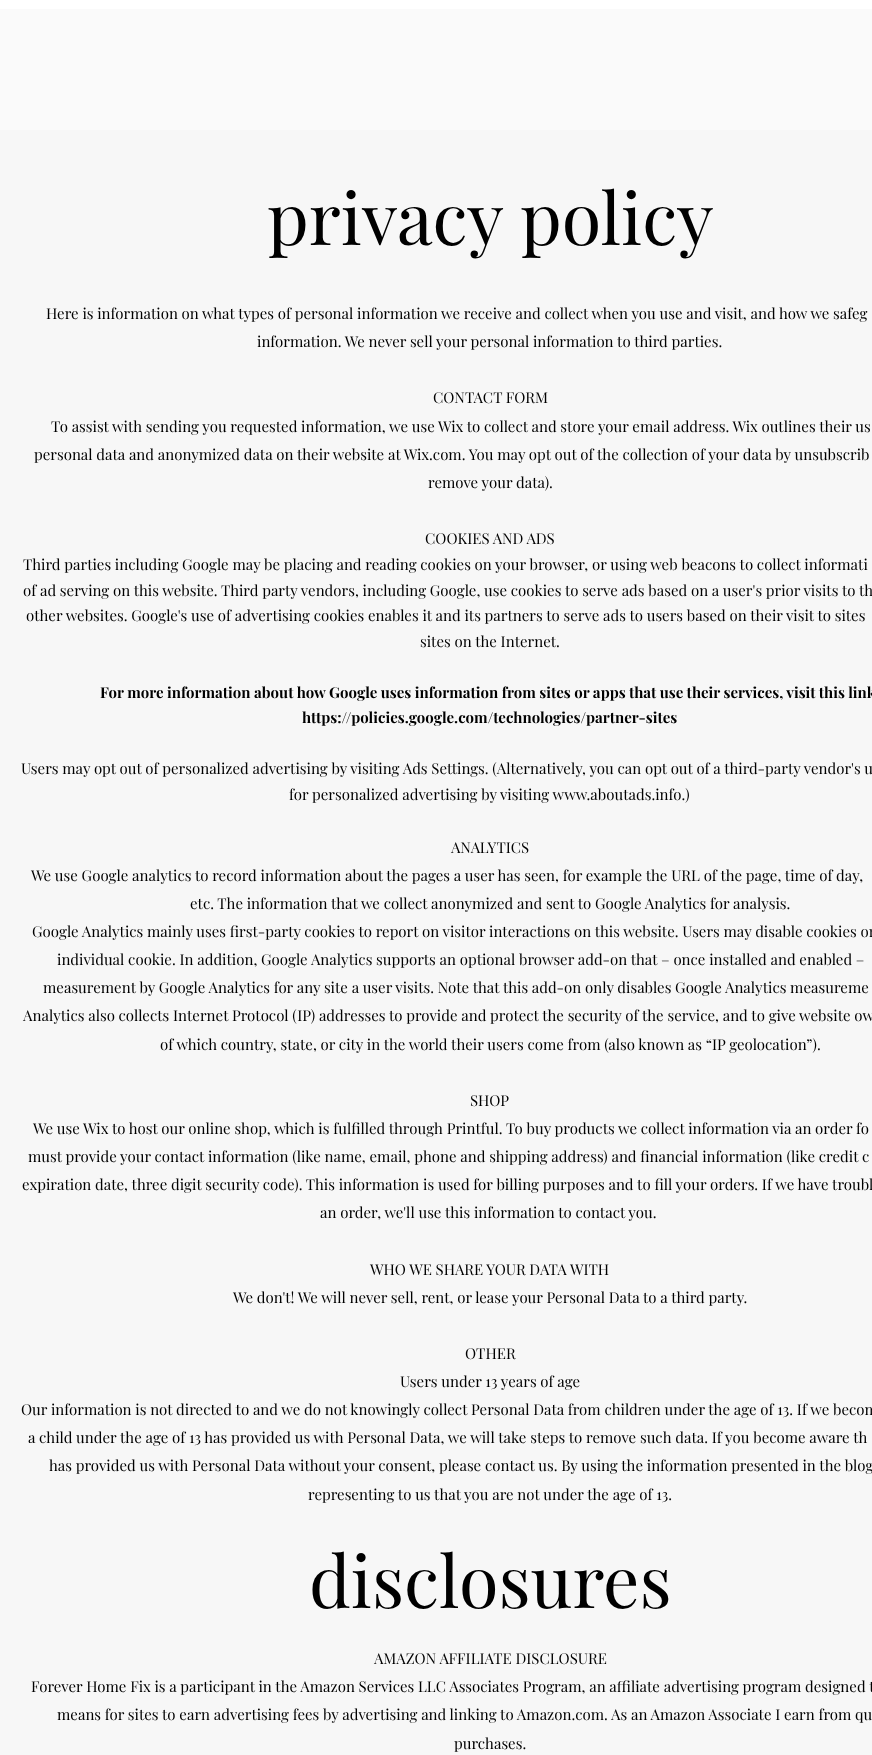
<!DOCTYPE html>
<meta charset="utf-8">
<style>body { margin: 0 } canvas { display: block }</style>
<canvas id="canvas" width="872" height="1755"></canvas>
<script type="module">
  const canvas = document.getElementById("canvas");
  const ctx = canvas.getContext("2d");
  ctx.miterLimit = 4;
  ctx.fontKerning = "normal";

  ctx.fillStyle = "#ffffff";
  ctx.fillRect(0, 0, 872, 1755);
  ctx.fillStyle = "#fafafa";
  ctx.fillRect(0, 9, 872, 121);
  ctx.fillStyle = "#f7f7f7";
  ctx.fillRect(0, 130, 872, 1625);
  ctx.font = "72px Playfair Display";
  ctx.fillStyle = "#000000";
  ctx.fillText("privacy policy", 267, 245);
  ctx.font = "15px Playfair Display";
  ctx.fillText("Here is information on what types of personal information we receive and collect when you use and visit, and how we safeg", 46, 319);
  ctx.fillText("information. We never sell your personal information to third parties.", 257, 347);
  ctx.fillText("CONTACT FORM", 433, 403);
  ctx.fillText("To assist with sending you requested information, we use Wix to collect and store your email address. Wix outlines their us", 51, 432);
  ctx.fillText("personal data and anonymized data on their website at Wix.com. You may opt out of the collection of your data by unsubscrib", 34, 460);
  ctx.fillText("remove your data).", 428, 488);
  ctx.fillText("COOKIES AND ADS", 425, 544);
  ctx.fillText("Third parties including Google may be placing and reading cookies on your browser, or using web beacons to collect informati", 23, 570);
  ctx.fillText("of ad serving on this website. Third party vendors, including Google, use cookies to serve ads based on a user's prior visits to th", 23, 596);
  ctx.fillText("other websites. Google's use of advertising cookies enables it and its partners to serve ads to users based on their visit to sites", 26, 621);
  ctx.fillText("sites on the Internet.", 420, 647);
  ctx.font = "bold 15px Playfair Display";
  ctx.fillText("For more information about how Google uses information from sites or apps that use their services, visit this link", 100, 698);
  ctx.fillText("https://policies.google.com/technologies/partner-sites", 302, 723);
  ctx.font = "15px Playfair Display";
  ctx.fillText("Users may opt out of personalized advertising by visiting Ads Settings. (Alternatively, you can opt out of a third-party vendor's u", 21, 774);
  ctx.fillText("for personalized advertising by visiting www.aboutads.info.)", 289, 800);
  ctx.fillText("ANALYTICS", 451, 853);
  ctx.fillText("We use Google analytics to record information about the pages a user has seen, for example the URL of the page, time of day,", 31, 881);
  ctx.fillText("etc. The information that we collect anonymized and sent to Google Analytics for analysis.", 190, 909);
  ctx.fillText("Google Analytics mainly uses first-party cookies to report on visitor interactions on this website. Users may disable cookies or", 32, 937);
  ctx.fillText("individual cookie. In addition, Google Analytics supports an optional browser add-on that – once installed and enabled –", 57, 965);
  ctx.fillText("measurement by Google Analytics for any site a user visits. Note that this add-on only disables Google Analytics measureme", 43, 993);
  ctx.fillText("Analytics also collects Internet Protocol (IP) addresses to provide and protect the security of the service, and to give website ow", 23, 1021);
  ctx.fillText("of which country, state, or city in the world their users come from (also known as “IP geolocation”).", 160, 1050);
  ctx.fillText("SHOP", 470, 1106);
  ctx.fillText("We use Wix to host our online shop, which is fulfilled through Printful. To buy products we collect information via an order fo", 33, 1134);
  ctx.fillText("must provide your contact information (like name, email, phone and shipping address) and financial information (like credit c", 28, 1162);
  ctx.fillText("expiration date, three digit security code). This information is used for billing purposes and to fill your orders. If we have troubl", 22, 1190);
  ctx.fillText("an order, we'll use this information to contact you.", 320, 1218);
  ctx.fillText("WHO WE SHARE YOUR DATA WITH", 370, 1275);
  ctx.fillText("We don't! We will never sell, rent, or lease your Personal Data to a third party.", 233, 1303);
  ctx.fillText("OTHER", 465, 1359);
  ctx.fillText("Users under 13 years of age", 400, 1387);
  ctx.fillText("Our information is not directed to and we do not knowingly collect Personal Data from children under the age of 13. If we becom", 21, 1415);
  ctx.fillText("a child under the age of 13 has provided us with Personal Data, we will take steps to remove such data. If you become aware th", 28, 1443);
  ctx.fillText("has provided us with Personal Data without your consent, please contact us. By using the information presented in the blog", 49, 1471);
  ctx.fillText("representing to us that you are not under the age of 13.", 308, 1500);
  ctx.font = "72px Playfair Display";
  ctx.fillText("disclosures", 309, 1608);
  ctx.font = "15px Playfair Display";
  ctx.fillText("AMAZON AFFILIATE DISCLOSURE", 374, 1664);
  ctx.fillText("Forever Home Fix is a participant in the Amazon Services LLC Associates Program, an affiliate advertising program designed t", 31, 1692);
  ctx.fillText("means for sites to earn advertising fees by advertising and linking to Amazon.com. As an Amazon Associate I earn from qu", 57, 1720);
  ctx.fillText("purchases.", 454, 1749);
</script>
